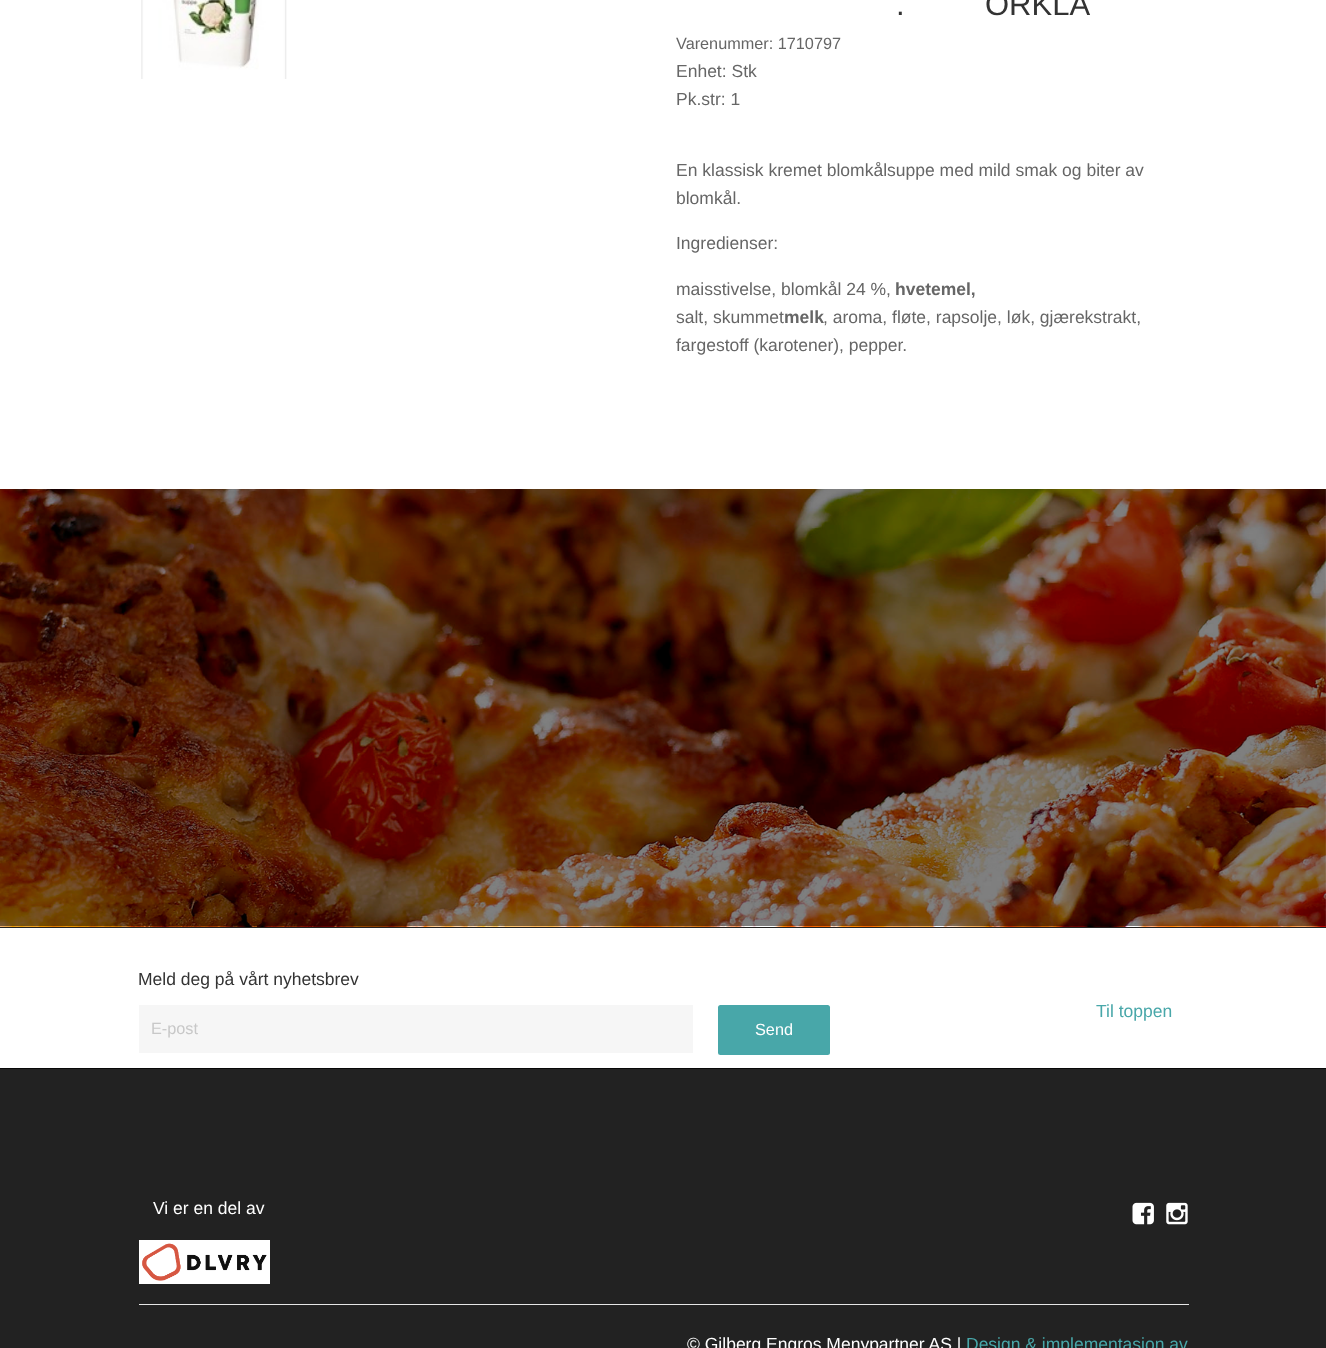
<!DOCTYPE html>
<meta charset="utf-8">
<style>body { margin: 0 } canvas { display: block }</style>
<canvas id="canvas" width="1326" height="1348"></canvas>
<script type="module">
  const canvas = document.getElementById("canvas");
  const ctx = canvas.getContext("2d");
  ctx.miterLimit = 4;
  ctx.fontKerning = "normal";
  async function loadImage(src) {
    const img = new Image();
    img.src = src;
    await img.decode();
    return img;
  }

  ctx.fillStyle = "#ffffff";
  ctx.fillRect(0, 0, 1326, 1348);
  ctx.drawImage(await loadImage("img1.png"), 141, 0, 146, 79);
  ctx.font = "31px Liberation Sans";
  ctx.fillStyle = "#333333";
  ctx.fillText(".", 896, 15);
  ctx.fillText("ORKLA", 985, 15);
  ctx.font = "16.25px Liberation Sans";
  ctx.fillStyle = "#666666";
  ctx.fillText("Varenummer: 1710797", 676, 49);
  ctx.font = "17.5px Liberation Sans";
  ctx.fillText("Enhet: Stk", 676, 77);
  ctx.fillText("Pk.str: 1", 676, 105);
  ctx.fillText("En klassisk kremet blomkålsuppe med mild smak og biter av", 676, 176);
  ctx.fillText("blomkål.", 676, 204);
  ctx.fillText("Ingredienser:", 676, 249);
  ctx.fillText("maisstivelse, blomkål 24 %,", 676, 295);
  ctx.font = "bold 17.5px Liberation Sans";
  ctx.fillText("hvetemel,", 895, 295);
  ctx.font = "17.5px Liberation Sans";
  ctx.fillText("salt, skummet", 676, 323);
  ctx.font = "bold 17.5px Liberation Sans";
  ctx.fillText("melk", 784, 323);
  ctx.font = "17.5px Liberation Sans";
  ctx.fillText(", aroma, fløte, rapsolje, løk, gjærekstrakt,", 823, 323);
  ctx.fillText("fargestoff (karotener), pepper.", 676, 351);
  ctx.fillStyle = "#222222";
  ctx.fillRect(0, 926, 1326, 422);
  ctx.drawImage(await loadImage("img2.png"), 0, 489, 1326, 438);
  ctx.fillStyle = "#ffffff";
  ctx.fillRect(0, 928, 1326, 140);
  ctx.fillStyle = "#080808";
  ctx.fillRect(0, 1068, 1326, 1);
  ctx.fillStyle = "#333333";
  ctx.fillText("Meld deg på vårt nyhetsbrev", 138, 985);
  ctx.fillStyle = "#f6f6f6";
  ctx.fillRect(139, 1005, 554, 48);
  ctx.font = "16.25px Liberation Sans";
  ctx.fillStyle = "#c8c8c8";
  ctx.fillText("E-post", 151, 1034);
  ctx.fillStyle = "#48a7a9";
  ctx.beginPath();
  ctx.roundRect(718, 1005, 112, 50, 2.5);
  ctx.fill();
  ctx.fillStyle = "#ffffff";
  ctx.fillText("Send", 755, 1035);
  ctx.font = "17.5px Liberation Sans";
  ctx.fillStyle = "#48a7a9";
  ctx.fillText("Til toppen", 1096, 1017);
  ctx.fillStyle = "#ffffff";
  ctx.fillText("Vi er en del av", 153, 1214);
  ctx.fillRect(139, 1240, 131, 44);
  ctx.drawImage(await loadImage("img3.png"), 142, 1243, 125, 38);
  ctx.drawImage(await loadImage("img4.png"), 1132, 1202, 22, 23);
  ctx.drawImage(await loadImage("img5.png"), 1166, 1202, 22, 23);
  ctx.fillStyle = "#e6e6e6";
  ctx.fillRect(139, 1304, 1050, 1);
  ctx.fillStyle = "#ffffff";
  ctx.fillText("© Gilberg Engros Menypartner AS |", 687, 1350);
  ctx.fillStyle = "#48a7a9";
  ctx.fillText("Design & implementasjon av", 966, 1350);
</script>
